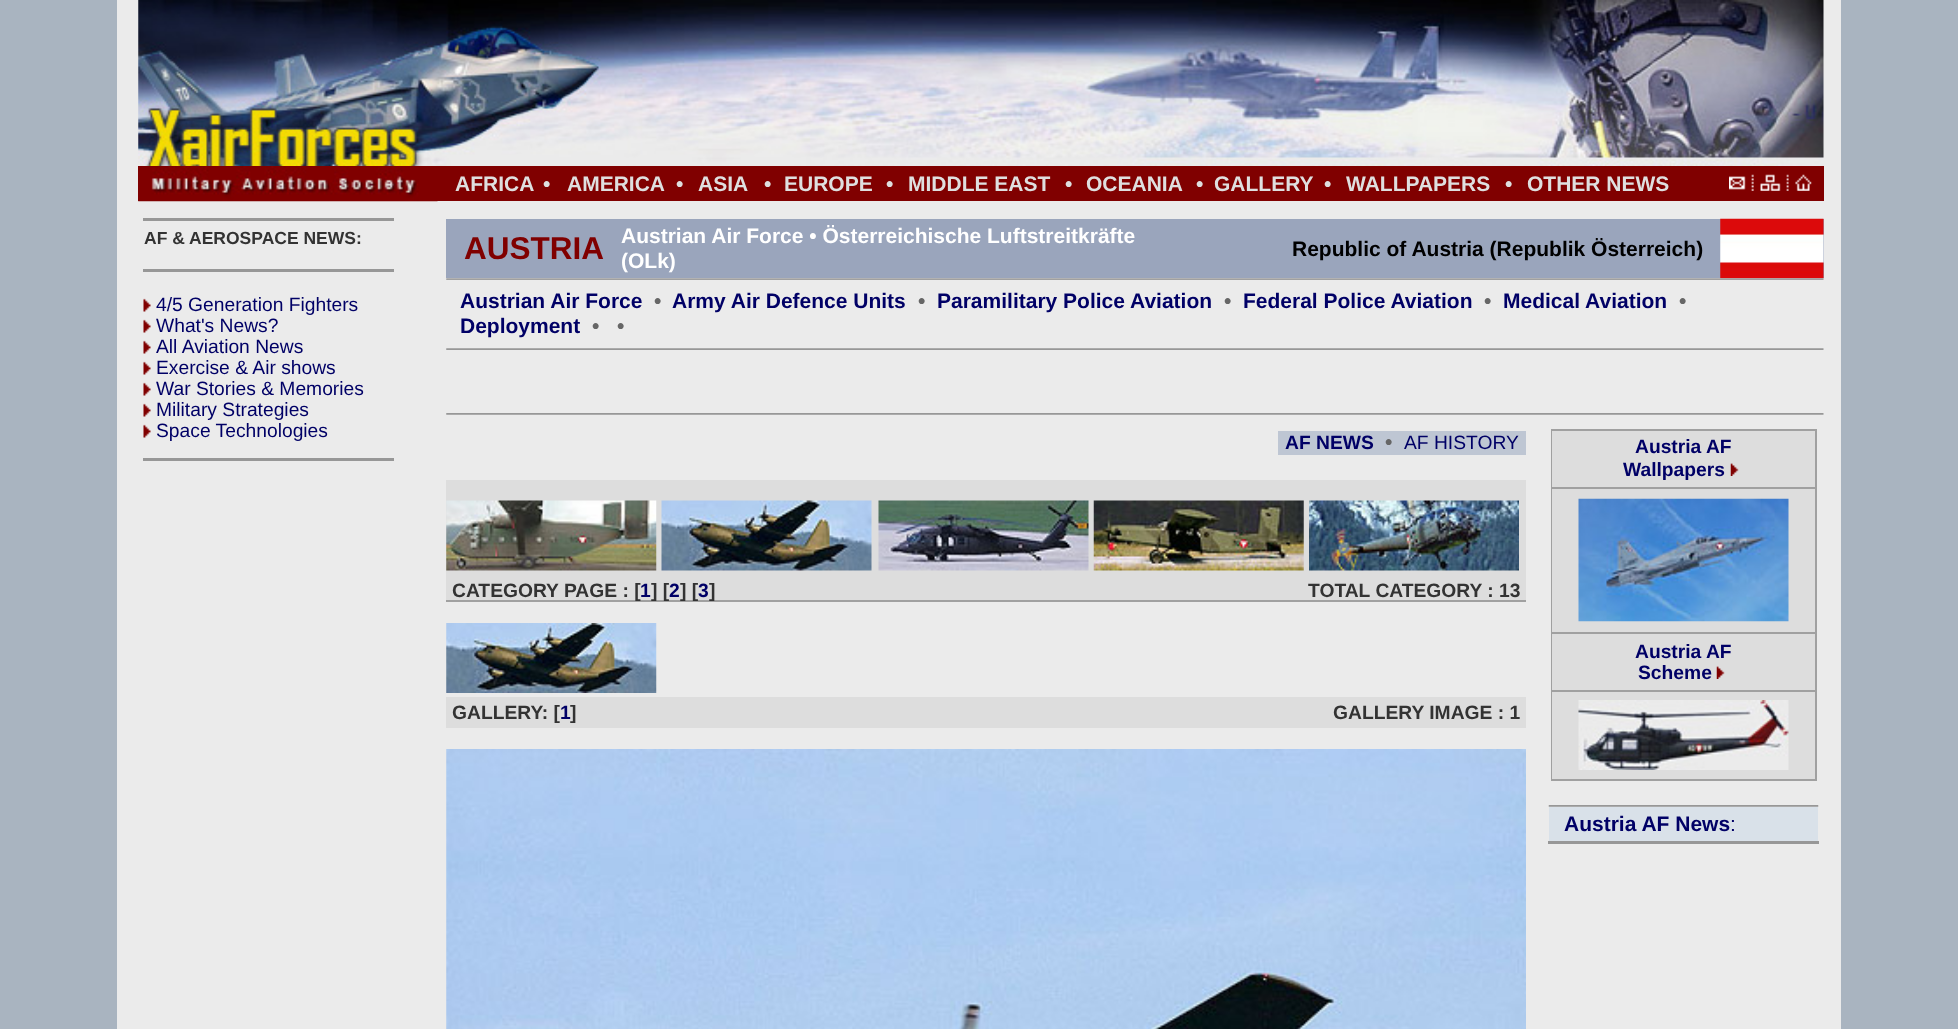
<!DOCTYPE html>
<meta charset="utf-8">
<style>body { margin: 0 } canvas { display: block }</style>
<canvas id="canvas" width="1958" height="1029"></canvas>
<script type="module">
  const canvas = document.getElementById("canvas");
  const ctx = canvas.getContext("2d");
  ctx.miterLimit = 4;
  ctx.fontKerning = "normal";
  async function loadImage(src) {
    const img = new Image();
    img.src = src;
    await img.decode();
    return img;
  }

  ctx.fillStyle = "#a9b4c0";
  ctx.fillRect(0, 0, 1958, 1029);
  ctx.fillStyle = "#ebebeb";
  ctx.fillRect(117, 0, 1724, 1029);
  ctx.drawImage(await loadImage("img1.png"), 138, 0, 1686, 166);
  ctx.fillStyle = "#800000";
  ctx.fillRect(138, 166, 1686, 35);
  ctx.drawImage(await loadImage("img2.png"), 138, 166, 300, 36);
  ctx.font = "bold 21px Liberation Sans";
  ctx.fillStyle = "#dfdfdf";
  ctx.fillText("AFRICA", 455, 191);
  ctx.fillText("•", 543, 191);
  ctx.fillText("AMERICA", 567, 191);
  ctx.fillText("•", 676, 191);
  ctx.fillText("ASIA", 698, 191);
  ctx.fillText("•", 764, 191);
  ctx.fillText("EUROPE", 784, 191);
  ctx.fillText("•", 886, 191);
  ctx.fillText("MIDDLE EAST", 908, 191);
  ctx.fillText("•", 1065, 191);
  ctx.fillText("OCEANIA", 1086, 191);
  ctx.fillText("•", 1196, 191);
  ctx.fillText("GALLERY", 1214, 191);
  ctx.fillText("•", 1324, 191);
  ctx.fillText("WALLPAPERS", 1346, 191);
  ctx.fillText("•", 1505, 191);
  ctx.fillText("OTHER NEWS", 1527, 191);
  ctx.drawImage(await loadImage("img3.png"), 1729, 174, 83, 17);
  ctx.fillStyle = "#979797";
  ctx.fillRect(143, 218, 251, 3);
  ctx.font = "bold 17.5px Liberation Sans";
  ctx.fillStyle = "#333333";
  ctx.fillText("AF & AEROSPACE NEWS:", 144, 244);
  ctx.fillStyle = "#979797";
  ctx.fillRect(143, 269, 251, 3);
  ctx.drawImage(await loadImage("img4.png"), 143, 298, 8, 14);
  ctx.font = "19.25px Liberation Sans";
  ctx.fillStyle = "#000066";
  ctx.fillText("4/5 Generation Fighters", 156, 311);
  ctx.drawImage(await loadImage("img4.png"), 143, 319, 8, 14);
  ctx.fillText("What's News?", 156, 332);
  ctx.drawImage(await loadImage("img4.png"), 143, 340, 8, 14);
  ctx.fillText("All Aviation News", 156, 353);
  ctx.drawImage(await loadImage("img4.png"), 143, 361, 8, 14);
  ctx.fillText("Exercise & Air shows", 156, 374);
  ctx.drawImage(await loadImage("img4.png"), 143, 382, 8, 14);
  ctx.fillText("War Stories & Memories", 156, 395);
  ctx.drawImage(await loadImage("img4.png"), 143, 403, 8, 14);
  ctx.fillText("Military Strategies", 156, 416);
  ctx.drawImage(await loadImage("img4.png"), 143, 424, 8, 14);
  ctx.fillText("Space Technologies", 156, 437);
  ctx.fillStyle = "#979797";
  ctx.fillRect(143, 458, 251, 3);
  ctx.fillStyle = "#9aa5bc";
  ctx.fillRect(446, 219, 1378, 59);
  ctx.font = "bold 31.5px Liberation Sans";
  ctx.fillStyle = "#800000";
  ctx.fillText("AUSTRIA", 464, 259);
  ctx.font = "bold 21px Liberation Sans";
  ctx.fillStyle = "#ffffff";
  ctx.fillText("Austrian Air Force • Österreichische Luftstreitkräfte", 621, 243);
  ctx.fillText("(OLk)", 621, 268);
  ctx.fillStyle = "#000000";
  ctx.fillText("Republic of Austria (Republik Österreich)", 1292, 256);
  ctx.drawImage(await loadImage("img5.png"), 1720, 218, 104, 61);
  ctx.drawImage(await loadImage("img6.png"), 446, 278, 1378, 2);
  ctx.fillStyle = "#000066";
  ctx.fillText("Austrian Air Force", 460, 308);
  ctx.fillStyle = "#666666";
  ctx.fillText("•", 654, 308);
  ctx.fillStyle = "#000066";
  ctx.fillText("Army Air Defence Units", 672, 308);
  ctx.fillStyle = "#666666";
  ctx.fillText("•", 918, 308);
  ctx.fillStyle = "#000066";
  ctx.fillText("Paramilitary Police Aviation", 937, 308);
  ctx.fillStyle = "#666666";
  ctx.fillText("•", 1224, 308);
  ctx.fillStyle = "#000066";
  ctx.fillText("Federal Police Aviation", 1243, 308);
  ctx.fillStyle = "#666666";
  ctx.fillText("•", 1484, 308);
  ctx.fillStyle = "#000066";
  ctx.fillText("Medical Aviation", 1503, 308);
  ctx.fillStyle = "#666666";
  ctx.fillText("•", 1679, 308);
  ctx.fillStyle = "#000066";
  ctx.fillText("Deployment", 460, 333);
  ctx.fillStyle = "#666666";
  ctx.fillText("•", 592, 333);
  ctx.fillText("•", 617, 333);
  ctx.drawImage(await loadImage("img7.png"), 446, 348, 1378, 2);
  ctx.drawImage(await loadImage("img8.png"), 446, 413, 1378, 2);
  ctx.fillStyle = "#bec6d3";
  ctx.fillRect(1278, 431, 248, 24);
  ctx.font = "bold 19.25px Liberation Sans";
  ctx.fillStyle = "#000066";
  ctx.fillText("AF NEWS", 1285, 449);
  ctx.font = "bold 21px Liberation Sans";
  ctx.fillStyle = "#666666";
  ctx.fillText("•", 1385, 449);
  ctx.font = "19.25px Liberation Sans";
  ctx.fillStyle = "#000066";
  ctx.fillText("AF HISTORY", 1404, 449);
  ctx.fillStyle = "#dddddd";
  ctx.fillRect(446, 480, 1080, 99);
  ctx.drawImage(await loadImage("img9.png"), 446, 500, 211, 71);
  ctx.drawImage(await loadImage("img10.png"), 661, 500, 211, 71);
  ctx.drawImage(await loadImage("img11.png"), 878, 500, 211, 71);
  ctx.drawImage(await loadImage("img12.png"), 1093, 500, 211, 71);
  ctx.drawImage(await loadImage("img13.png"), 1309, 500, 210, 71);
  ctx.fillRect(446, 579, 1080, 21);
  ctx.fillStyle = "#a0a0a0";
  ctx.fillRect(446, 600, 1080, 2);
  ctx.font = "bold 19.25px Liberation Sans";
  ctx.fillStyle = "#333333";
  ctx.fillText("CATEGORY PAGE : [", 452, 597);
  ctx.fillStyle = "#000066";
  ctx.fillText("1", 640, 597);
  ctx.fillStyle = "#333333";
  ctx.fillText("] [", 651, 597);
  ctx.fillStyle = "#000066";
  ctx.fillText("2", 669, 597);
  ctx.fillStyle = "#333333";
  ctx.fillText("] [", 680, 597);
  ctx.fillStyle = "#000066";
  ctx.fillText("3", 698, 597);
  ctx.fillStyle = "#333333";
  ctx.fillText("]", 709, 597);
  ctx.fillText("TOTAL CATEGORY : 13", 1308, 597);
  ctx.drawImage(await loadImage("img14.png"), 446, 623, 211, 70);
  ctx.fillStyle = "#dddddd";
  ctx.fillRect(446, 697, 1080, 31);
  ctx.fillStyle = "#333333";
  ctx.fillText("GALLERY: [", 452, 719);
  ctx.fillStyle = "#000066";
  ctx.fillText("1", 560, 719);
  ctx.fillStyle = "#333333";
  ctx.fillText("]", 570, 719);
  ctx.fillText("GALLERY IMAGE : 1", 1333, 719);
  ctx.drawImage(await loadImage("img15.png"), 446, 749, 1080, 280);
  ctx.fillStyle = "#a0a0a0";
  ctx.fillRect(1551, 429, 266, 2);
  ctx.fillRect(1551, 431, 1, 348);
  ctx.fillStyle = "#dddddd";
  ctx.fillRect(1552, 431, 263, 348);
  ctx.fillStyle = "#000066";
  ctx.fillText("Austria AF", 1635, 453);
  ctx.fillText("Wallpapers", 1623, 476);
  ctx.drawImage(await loadImage("img16.png"), 1730, 463, 9, 13);
  ctx.fillStyle = "#a0a0a0";
  ctx.fillRect(1552, 487, 263, 2);
  ctx.drawImage(await loadImage("img17.png"), 1578, 498, 211, 124);
  ctx.fillRect(1552, 632, 263, 2);
  ctx.fillStyle = "#000066";
  ctx.fillText("Austria AF", 1635, 658);
  ctx.fillText("Scheme", 1638, 679);
  ctx.drawImage(await loadImage("img16.png"), 1716, 666, 9, 13);
  ctx.fillStyle = "#a0a0a0";
  ctx.fillRect(1552, 690, 263, 2);
  ctx.drawImage(await loadImage("img18.png"), 1578, 700, 211, 70);
  ctx.fillRect(1815, 431, 2, 348);
  ctx.fillRect(1551, 779, 266, 2);
  ctx.drawImage(await loadImage("img19.png"), 1548, 805, 271, 2);
  ctx.fillStyle = "#d9e1e9";
  ctx.fillRect(1549, 807, 269, 34);
  ctx.font = "bold 21px Liberation Sans";
  ctx.fillStyle = "#000066";
  ctx.fillText("Austria AF News", 1564, 831);
  ctx.font = "21px Liberation Sans";
  ctx.fillText(":", 1730, 831);
  ctx.fillStyle = "#979797";
  ctx.fillRect(1548, 841, 271, 3);
</script>
